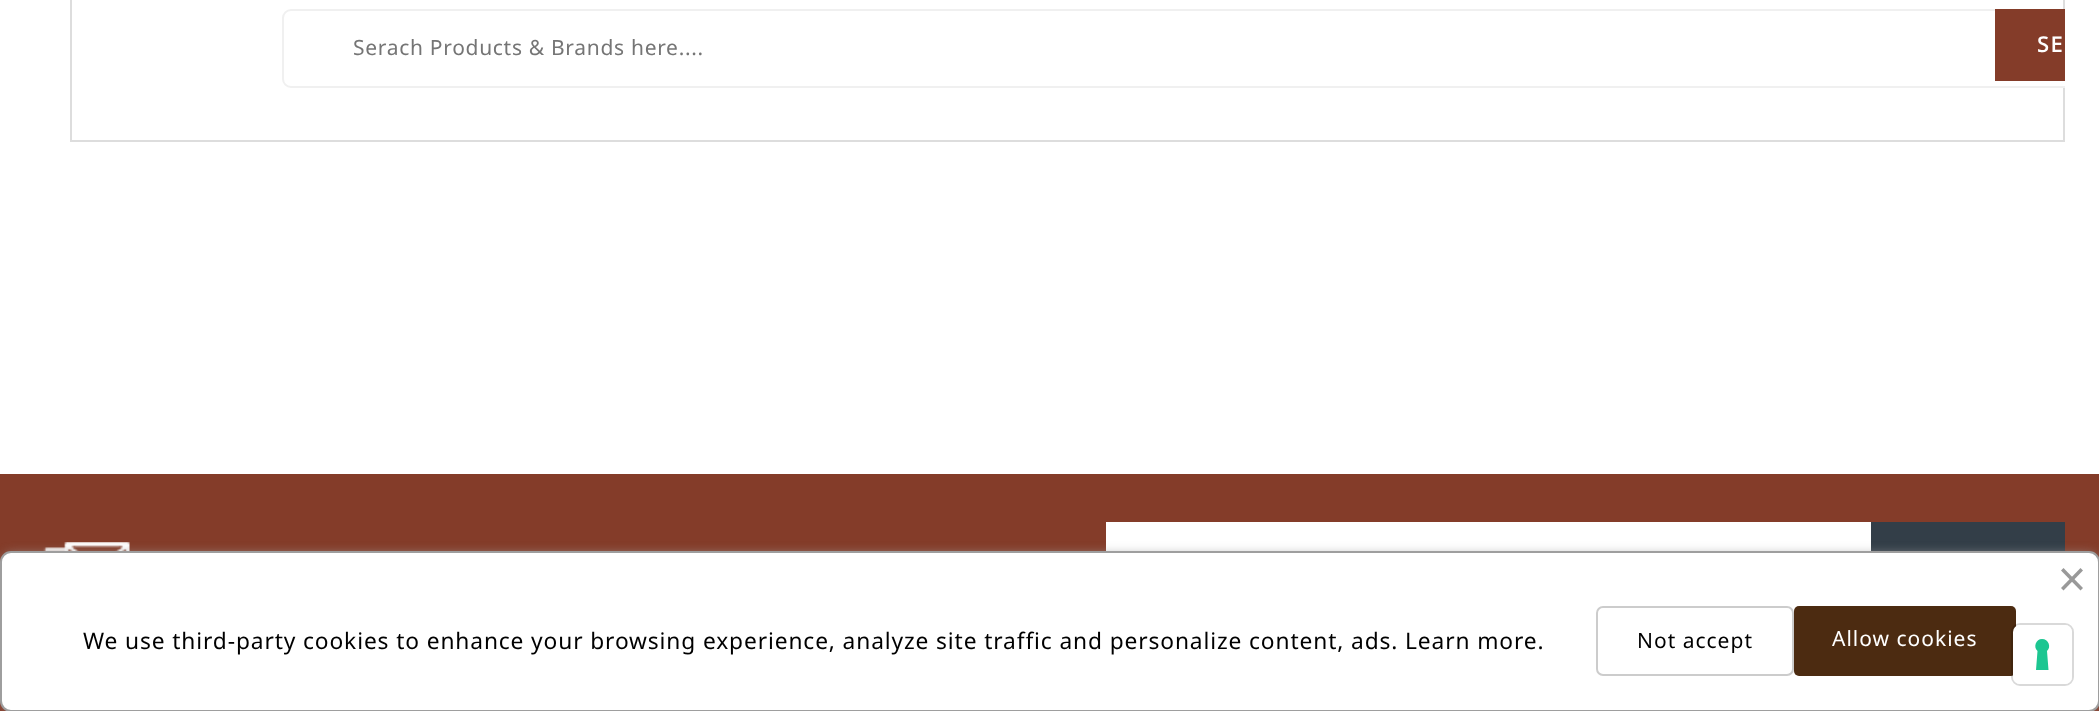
<!DOCTYPE html>
<meta charset="utf-8">
<style>body { margin: 0 } canvas { display: block }</style>
<canvas id="canvas" width="2099" height="711"></canvas>
<script type="module">
  const canvas = document.getElementById("canvas");
  const ctx = canvas.getContext("2d");
  ctx.miterLimit = 4;
  ctx.fontKerning = "normal";
  async function loadImage(src) {
    const img = new Image();
    img.src = src;
    await img.decode();
    return img;
  }

  ctx.fillStyle = "#ffffff";
  ctx.fillRect(0, 0, 2099, 711);
  ctx.strokeStyle = "#dddddd";
  ctx.lineWidth = 2;
  ctx.strokeRect(71, -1, 1993, 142);
  ctx.beginPath();
  ctx.roundRect(282, 9, 1783, 79, [9, 0, 0, 9]);
  ctx.fill();
  ctx.save();
  ctx.beginPath();
  ctx.rect(35, 0, 2030, 422);
  ctx.clip();
  ctx.beginPath();
  ctx.roundRect(283, 10, 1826, 77, 8);
  ctx.strokeStyle = "#f0f0f0";
  ctx.stroke();
  ctx.restore();
  ctx.letterSpacing = "0.7px";
  ctx.font = "21px Noto Sans";
  ctx.fillStyle = "#757575";
  ctx.fillText("Serach Products & Brands here....", 353, 55);
  ctx.fillStyle = "#843c29";
  ctx.fillRect(1995, 9, 70, 72);
  ctx.letterSpacing = "2px";
  ctx.font = "bold 21px Noto Sans";
  ctx.fillStyle = "#ffffff";
  ctx.fillText("SE", 2037, 52);
  ctx.fillStyle = "#843c29";
  ctx.fillRect(0, 474, 2099, 237);
  ctx.drawImage(await loadImage("img1.png"), 43, 542, 87, 9);
  ctx.fillStyle = "#ffffff";
  ctx.fillRect(1106, 522, 765, 29);
  ctx.fillStyle = "#333e48";
  ctx.fillRect(1871, 522, 194, 29);
  ctx.fillStyle = "#9e9e9e";
  ctx.filter = "blur(6px)";
  ctx.beginPath();
  ctx.roundRect(4, 555, 2093, 154, 7);
  ctx.fill();
  ctx.filter = "none";
  ctx.fillStyle = "#ffffff";
  ctx.beginPath();
  ctx.roundRect(1, 552, 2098, 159, 10);
  ctx.fill();
  ctx.strokeStyle = "#9e9e9e";
  ctx.stroke();
  ctx.fillStyle = "#999999";
  ctx.beginPath();
  ctx.moveTo(2061, 588);
  ctx.lineTo(2080.5, 568);
  ctx.lineTo(2083, 570.5);
  ctx.lineTo(2063.5, 590.5);
  ctx.closePath();
  ctx.fill();
  ctx.beginPath();
  ctx.moveTo(2063.5, 568);
  ctx.lineTo(2083, 588);
  ctx.lineTo(2080.5, 590.5);
  ctx.lineTo(2061, 570.5);
  ctx.closePath();
  ctx.fill();
  ctx.letterSpacing = "0.88px";
  ctx.font = "22.75px Noto Sans";
  ctx.fillStyle = "#000000";
  ctx.fillText("We use third-party cookies to enhance your browsing experience, analyze site traffic and personalize content, ads. Learn more.", 83, 649);
  ctx.beginPath();
  ctx.roundRect(1597, 607, 196, 68, 6);
  ctx.strokeStyle = "#cccccc";
  ctx.stroke();
  ctx.letterSpacing = "1px";
  ctx.font = "21px Noto Sans";
  ctx.fillText("Not accept", 1637, 648);
  ctx.fillStyle = "#4c2b11";
  ctx.beginPath();
  ctx.roundRect(1794, 606, 222, 70, 5);
  ctx.fill();
  ctx.fillStyle = "#ffffff";
  ctx.fillText("Allow cookies", 1832, 646);
  ctx.beginPath();
  ctx.roundRect(2012, 624, 61, 61, 8);
  ctx.strokeStyle = "rgba(0, 0, 0, 0.15)";
  ctx.stroke();
  ctx.beginPath();
  ctx.roundRect(2013, 625, 59, 59, 7);
  ctx.fill();
  ctx.fillStyle = "#1cc691";
  ctx.beginPath();
  ctx.moveTo(2042, 639);
  ctx.bezierCurveTo(2048.5, 639, 2051.5, 647, 2047, 651);
  ctx.lineTo(2048.5, 670);
  ctx.lineTo(2036, 670);
  ctx.lineTo(2037.5, 651);
  ctx.bezierCurveTo(2033, 647, 2036, 639, 2042, 639);
  ctx.closePath();
  ctx.fill("evenodd");
</script>
